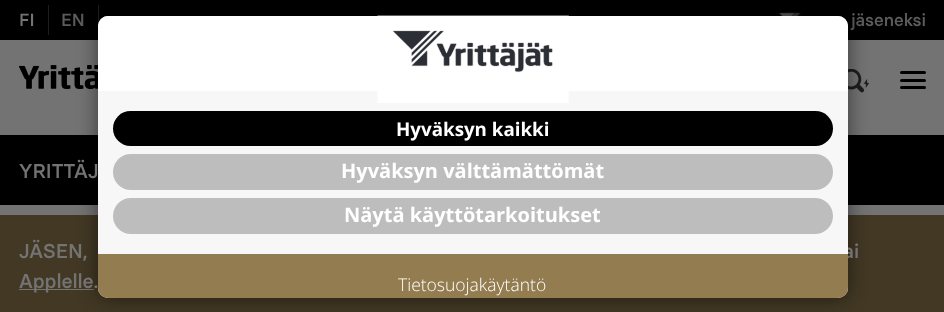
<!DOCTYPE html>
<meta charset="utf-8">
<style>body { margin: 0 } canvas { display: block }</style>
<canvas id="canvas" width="944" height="312"></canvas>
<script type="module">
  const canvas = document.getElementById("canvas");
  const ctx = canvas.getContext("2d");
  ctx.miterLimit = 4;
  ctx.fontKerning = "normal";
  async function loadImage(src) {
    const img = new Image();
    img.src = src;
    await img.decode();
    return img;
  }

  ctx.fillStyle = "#737373";
  ctx.fillRect(0, 0, 944, 312);
  ctx.fillStyle = "#000000";
  ctx.fillRect(0, 0, 944, 40);
  ctx.fillStyle = "#1e1e1e";
  ctx.fillRect(48, 5, 1, 30);
  ctx.font = "500 17.5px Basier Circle";
  ctx.fillStyle = "#737373";
  ctx.fillText("FI", 19, 26);
  ctx.fillStyle = "#1e1e1e";
  ctx.fillRect(98, 5, 1, 21);
  ctx.fillStyle = "#5c5c5c";
  ctx.fillText("EN", 61, 26);
  ctx.drawImage(await loadImage("img1.png"), 778, 11, 23, 5);
  ctx.fillText("jäseneksi", 851, 26);
  ctx.drawImage(await loadImage("img2.png"), 19, 65, 79, 24);
  ctx.drawImage(await loadImage("img3.png"), 848, 69, 21, 24);
  ctx.fillStyle = "#000000";
  ctx.beginPath();
  ctx.roundRect(900, 79, 26, 3, 1.5);
  ctx.fill();
  ctx.beginPath();
  ctx.roundRect(900, 71, 26, 3, 1.5);
  ctx.fill();
  ctx.beginPath();
  ctx.roundRect(900, 86, 26, 3, 1.5);
  ctx.fill();
  ctx.fillRect(0, 135, 944, 70);
  ctx.fillStyle = "#423824";
  ctx.fillRect(0, 215, 944, 97);
  ctx.fillStyle = "#737373";
  ctx.fillRect(19, 289, 75, 1);
  ctx.fillStyle = "rgba(0, 0, 0, 0.5)";
  ctx.filter = "blur(10px)";
  ctx.beginPath();
  ctx.roundRect(98, 16, 750, 282, 10);
  ctx.fill();
  ctx.filter = "none";
  ctx.font = "500 20px Basier Circle";
  ctx.fillStyle = "#737373";
  ctx.fillText("ai", 843, 258);
  ctx.fillStyle = "#f7f7f7";
  ctx.beginPath();
  ctx.roundRect(98, 16, 750, 282, 10);
  ctx.fill();
  ctx.fillStyle = "#ffffff";
  ctx.beginPath();
  ctx.roundRect(98, 16, 750, 75, [10, 10, 0, 0]);
  ctx.fill();
  ctx.drawImage(await loadImage("img4.png"), 377, 15, 192, 88);
  ctx.fillStyle = "#000000";
  ctx.beginPath();
  ctx.roundRect(113, 111, 720, 35, 17.5);
  ctx.fill();
  ctx.font = "bold 18.75px Open Sans";
  ctx.fillStyle = "#ffffff";
  ctx.fillText("Hyväksyn kaikki", 396, 136);
  ctx.fillStyle = "#bdbdbd";
  ctx.beginPath();
  ctx.roundRect(113, 154, 720, 36, 18);
  ctx.fill();
  ctx.font = "bold 20px Open Sans";
  ctx.fillStyle = "#ffffff";
  ctx.fillText("Hyväksyn välttämättömät", 341, 178);
  ctx.fillStyle = "#bdbdbd";
  ctx.beginPath();
  ctx.roundRect(113, 198, 720, 36, 18);
  ctx.fill();
  ctx.fillStyle = "#ffffff";
  ctx.fillText("Näytä käyttötarkoitukset", 344, 222);
  ctx.fillStyle = "#937c4f";
  ctx.beginPath();
  ctx.roundRect(98, 254, 750, 44, [0, 0, 10, 10]);
  ctx.fill();
  ctx.font = "300 17.5px Open Sans";
  ctx.fillStyle = "#ffffff";
  ctx.fillText("Tietosuojakäytäntö", 398, 291);
  ctx.font = "500 20px Basier Circle";
  ctx.fillStyle = "#737373";
  ctx.fillText("YRITTÄJ", 19, 178);
  ctx.fillText("JÄSEN,", 19, 258);
  ctx.fillText("Applelle.", 19, 288);
</script>
